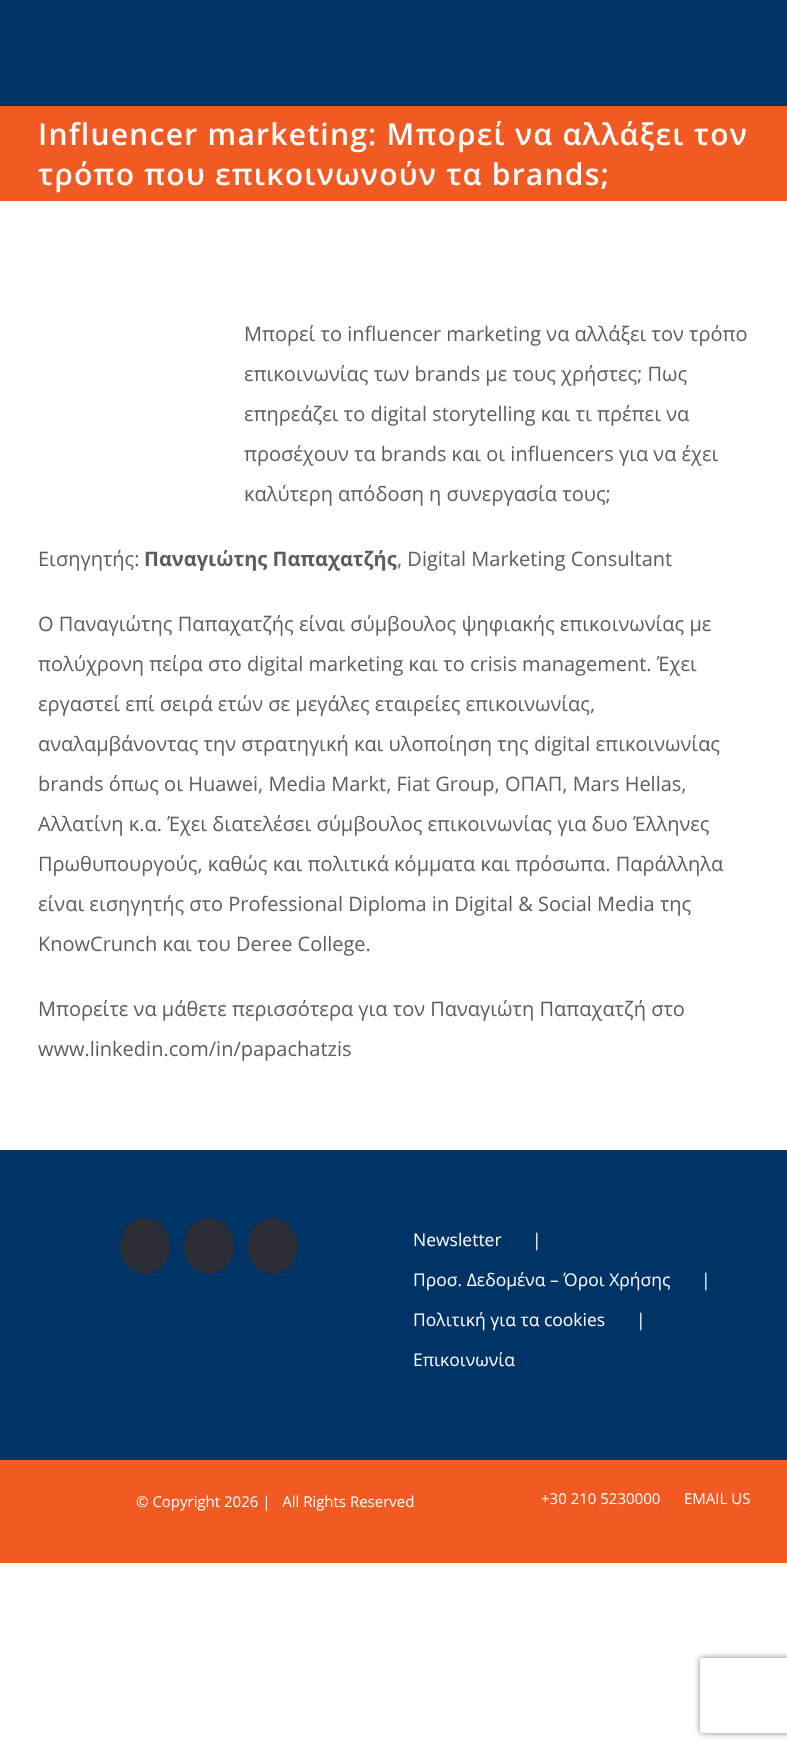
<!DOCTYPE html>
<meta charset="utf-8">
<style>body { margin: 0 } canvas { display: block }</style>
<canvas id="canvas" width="787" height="1750"></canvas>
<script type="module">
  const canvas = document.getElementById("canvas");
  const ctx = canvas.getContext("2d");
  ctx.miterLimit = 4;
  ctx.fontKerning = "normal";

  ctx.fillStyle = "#ffffff";
  ctx.fillRect(0, 0, 787, 1750);
  ctx.fillStyle = "#003366";
  ctx.fillRect(0, 0, 787, 106);
  ctx.fillStyle = "#f15a22";
  ctx.fillRect(0, 106, 787, 95);
  ctx.letterSpacing = "1.25px";
  ctx.font = "600 30px Open Sans";
  ctx.fillStyle = "#ffffff";
  ctx.fillText("Ιnfluencer marketing: Μπορεί να αλλάξει τον", 38, 145);
  ctx.fillText("τρόπο που επικοινωνούν τα brands;", 38, 185);
  ctx.letterSpacing = "0px";
  ctx.font = "20px Open Sans";
  ctx.fillStyle = "#5a5d62";
  ctx.fillText("Μπορεί το influencer marketing να αλλάξει τον τρόπο", 244, 341);
  ctx.fillText("επικοινωνίας των brands με τους χρήστες; Πως", 244, 381);
  ctx.fillText("επηρεάζει το digital storytelling και τι πρέπει να", 244, 421);
  ctx.fillText("προσέχουν τα brands και οι influencers για να έχει", 244, 461);
  ctx.fillText("καλύτερη απόδοση η συνεργασία τους;", 244, 501);
  ctx.fillText("Εισηγητής:", 38, 566);
  ctx.font = "bold 20px Open Sans";
  ctx.fillText("Παναγιώτης Παπαχατζής", 144, 566);
  ctx.font = "20px Open Sans";
  ctx.fillText(", Digital Marketing Consultant", 397, 566);
  ctx.fillText("Ο Παναγιώτης Παπαχατζής είναι σύμβουλος ψηφιακής επικοινωνίας με", 38, 631);
  ctx.fillText("πολύχρονη πείρα στο digital marketing και το crisis management. Έχει", 38, 671);
  ctx.fillText("εργαστεί επί σειρά ετών σε μεγάλες εταιρείες επικοινωνίας,", 38, 711);
  ctx.fillText("αναλαμβάνοντας την στρατηγική και υλοποίηση της digital επικοινωνίας", 38, 751);
  ctx.fillText("brands όπως οι Huawei, Media Markt, Fiat Group, ΟΠΑΠ, Mars Hellas,", 38, 791);
  ctx.fillText("Αλλατίνη κ.α. Έχει διατελέσει σύμβουλος επικοινωνίας για δυο Έλληνες", 38, 831);
  ctx.fillText("Πρωθυπουργούς, καθώς και πολιτικά κόμματα και πρόσωπα. Παράλληλα", 38, 871);
  ctx.fillText("είναι εισηγητής στο Professional Diploma in Digital & Social Media της", 38, 911);
  ctx.fillText("KnowCrunch και του Deree College.", 38, 951);
  ctx.fillText("Μπορείτε να μάθετε περισσότερα για τον Παναγιώτη Παπαχατζή στο", 38, 1016);
  ctx.fillText("www.linkedin.com/in/papachatzis", 38, 1056);
  ctx.fillStyle = "#003366";
  ctx.fillRect(0, 1150, 787, 310);
  ctx.fillStyle = "#2b2e35";
  ctx.beginPath();
  ctx.ellipse(145, 1246, 25, 27.5, 0, 0, Math.PI * 2);
  ctx.fill();
  ctx.beginPath();
  ctx.moveTo(145, 1219.5);
  ctx.bezierCurveTo(177, 1219.5, 177, 1273, 145, 1273);
  ctx.bezierCurveTo(113, 1273, 113, 1219.5, 145, 1219.5);
  ctx.closePath();
  ctx.strokeStyle = "#2b2e35";
  ctx.lineWidth = 1.2;
  ctx.stroke();
  ctx.beginPath();
  ctx.ellipse(209, 1246, 25, 27.5, 0, 0, Math.PI * 2);
  ctx.fill();
  ctx.beginPath();
  ctx.moveTo(209, 1219.5);
  ctx.bezierCurveTo(241, 1219.5, 241, 1273, 209, 1273);
  ctx.bezierCurveTo(176.5, 1273, 176.5, 1219.5, 209, 1219.5);
  ctx.closePath();
  ctx.stroke();
  ctx.beginPath();
  ctx.ellipse(272.5, 1246, 25, 27.5, 0, 0, Math.PI * 2);
  ctx.fill();
  ctx.beginPath();
  ctx.moveTo(272.5, 1219.5);
  ctx.bezierCurveTo(304.5, 1219.5, 304.5, 1273, 272.5, 1273);
  ctx.bezierCurveTo(240.5, 1273, 240.5, 1219.5, 272.5, 1219.5);
  ctx.closePath();
  ctx.stroke();
  ctx.font = "17.5px Open Sans";
  ctx.fillStyle = "#ffffff";
  ctx.fillText("Newsletter", 413, 1246);
  ctx.fillText("|", 532, 1246);
  ctx.fillText("Προσ. Δεδομένα – Όροι Χρήσης", 413, 1286);
  ctx.fillText("|", 701, 1286);
  ctx.fillText("Πολιτική για τα cookies", 413, 1326);
  ctx.fillText("|", 636, 1326);
  ctx.fillText("Επικοινωνία", 413, 1366);
  ctx.fillStyle = "#f15a22";
  ctx.fillRect(0, 1460, 787, 103);
  ctx.font = "15px Open Sans";
  ctx.fillStyle = "#ffffff";
  ctx.fillText("© Copyright 2026 |   All Rights Reserved", 136, 1507);
  ctx.fillText("+30 210 5230000", 541, 1504);
  ctx.fillText("EMAIL US", 684, 1504);
  ctx.save();
  ctx.beginPath();
  ctx.moveTo(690, 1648);
  ctx.lineTo(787, 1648);
  ctx.lineTo(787, 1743);
  ctx.lineTo(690, 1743);
  ctx.closePath();
  ctx.moveTo(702.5, 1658);
  ctx.lineTo(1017.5, 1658);
  ctx.bezierCurveTo(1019, 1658, 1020, 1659, 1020, 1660.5);
  ctx.lineTo(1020, 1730.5);
  ctx.bezierCurveTo(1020, 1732, 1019, 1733, 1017.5, 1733);
  ctx.lineTo(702.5, 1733);
  ctx.bezierCurveTo(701, 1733, 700, 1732, 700, 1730.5);
  ctx.lineTo(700, 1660.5);
  ctx.bezierCurveTo(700, 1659, 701, 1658, 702.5, 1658);
  ctx.closePath();
  ctx.clip("evenodd");
  ctx.fillStyle = "#808080";
  ctx.filter = "blur(3px)";
  ctx.beginPath();
  ctx.roundRect(700, 1658, 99, 75, 2.5);
  ctx.fill();
  ctx.filter = "none";
  ctx.restore();
</script>
